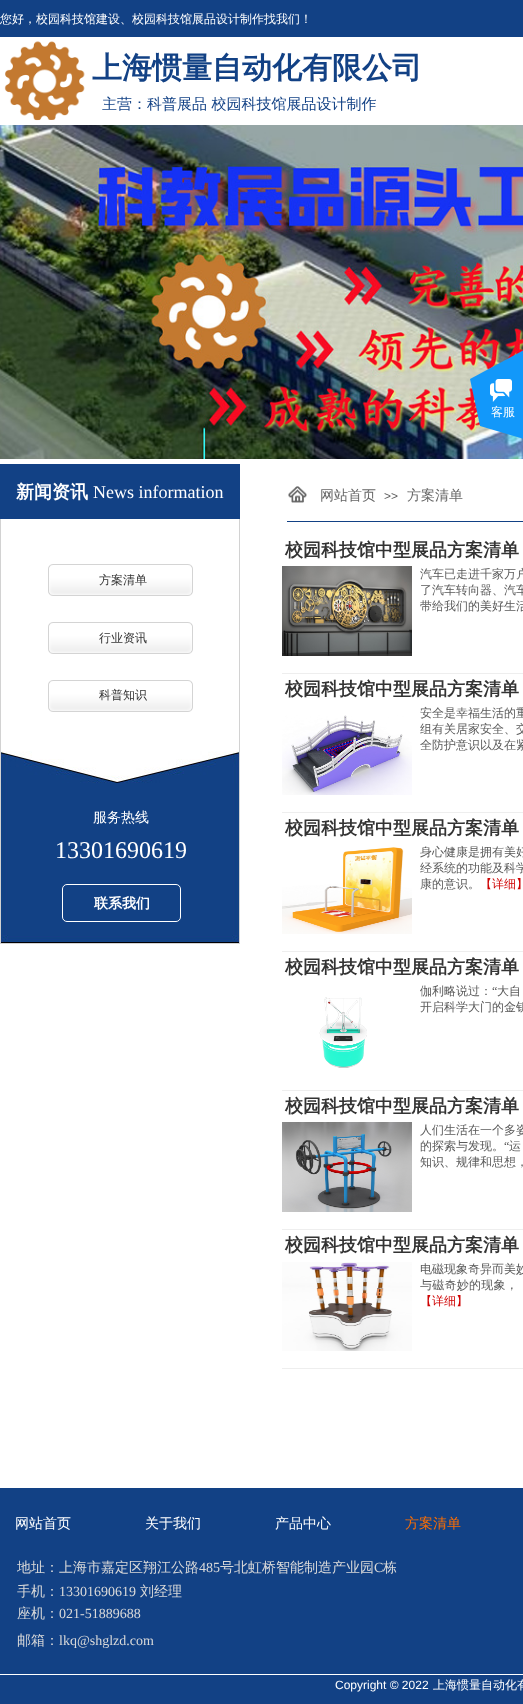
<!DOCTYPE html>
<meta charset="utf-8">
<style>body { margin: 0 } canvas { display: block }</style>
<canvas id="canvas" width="523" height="1704"></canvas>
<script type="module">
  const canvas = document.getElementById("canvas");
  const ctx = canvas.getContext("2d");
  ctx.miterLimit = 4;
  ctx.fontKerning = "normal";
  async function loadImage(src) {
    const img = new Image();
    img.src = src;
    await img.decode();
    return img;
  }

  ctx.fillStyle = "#ffffff";
  ctx.fillRect(0, 0, 523, 1704);
  ctx.fillStyle = "#124185";
  ctx.fillRect(0, 0, 523, 37);
  ctx.font = "500 12px WenQuanYi Zen Hei";
  ctx.fillStyle = "#ffffff";
  ctx.fillText("您好，校园科技馆建设、校园科技馆展品设计制作找我们！", 0, 23);
  ctx.drawImage(await loadImage("img1.png"), 4, 41, 81, 80);
  ctx.font = "bold 30px WenQuanYi Zen Hei";
  ctx.fillStyle = "#124185";
  ctx.fillText("上海惯量自动化有限公司", 92, 78);
  ctx.font = "500 15px WenQuanYi Zen Hei";
  ctx.fillText("主营：科普展品 校园科技馆展品设计制作", 102, 109);
  ctx.drawImage(await loadImage("img2.png"), 0, 125, 523, 334);
  ctx.drawImage(await loadImage("img3.png"), 1, 751, 238, 192);
  ctx.strokeStyle = "#d2d2d2";
  ctx.strokeRect(0.5, 464.5, 239, 479);
  ctx.fillRect(0, 464, 240, 55);
  ctx.font = "bold 18px WenQuanYi Zen Hei";
  ctx.fillStyle = "#ffffff";
  ctx.fillText("新闻资讯", 16, 498);
  ctx.font = "18px Liberation Serif";
  ctx.fillText("News information", 93, 498);
  ctx.drawImage(await loadImage("img4.png"), 48, 564, 145, 32);
  ctx.font = "500 12px WenQuanYi Zen Hei";
  ctx.fillStyle = "#333333";
  ctx.fillText("方案清单", 99, 584);
  ctx.drawImage(await loadImage("img4.png"), 48, 622, 145, 32);
  ctx.fillText("行业资讯", 99, 642);
  ctx.drawImage(await loadImage("img4.png"), 48, 680, 145, 32);
  ctx.fillText("科普知识", 99, 699);
  ctx.font = "500 14px WenQuanYi Zen Hei";
  ctx.fillStyle = "#ffffff";
  ctx.fillText("服务热线", 93, 822);
  ctx.font = "24px Liberation Serif";
  ctx.fillText("13301690619", 55, 858);
  ctx.beginPath();
  ctx.roundRect(62.5, 884.5, 118, 37, 4.5);
  ctx.strokeStyle = "#ffffff";
  ctx.stroke();
  ctx.font = "bold 14px WenQuanYi Zen Hei";
  ctx.fillText("联系我们", 94, 908);
  ctx.fillStyle = "#124185";
  ctx.fillRect(287, 521, 236, 1);
  ctx.drawImage(await loadImage("img5.png"), 288, 486, 19, 17);
  ctx.font = "500 14px WenQuanYi Zen Hei";
  ctx.fillStyle = "#666666";
  ctx.fillText("网站首页", 320, 500);
  ctx.font = "12px Liberation Sans";
  ctx.fillStyle = "#5a5a5a";
  ctx.fillText(">>", 384, 500);
  ctx.font = "500 14px WenQuanYi Zen Hei";
  ctx.fillStyle = "#666666";
  ctx.fillText("方案清单", 407, 500);
  ctx.font = "bold 18px WenQuanYi Zen Hei";
  ctx.fillStyle = "#333333";
  ctx.fillText("校园科技馆中型展品方案清单", 285, 556);
  ctx.drawImage(await loadImage("img6.png"), 282, 566, 130, 90);
  ctx.font = "500 12px WenQuanYi Zen Hei";
  ctx.fillStyle = "#5a5a5a";
  ctx.fillText("汽车已走进千家万户", 420, 578);
  ctx.fillText("了汽车转向器、汽车", 420, 594);
  ctx.fillText("带给我们的美好生活", 420, 610);
  ctx.fillStyle = "#eeeeee";
  ctx.fillRect(282, 673, 241, 1);
  ctx.font = "bold 18px WenQuanYi Zen Hei";
  ctx.fillStyle = "#333333";
  ctx.fillText("校园科技馆中型展品方案清单", 285, 695);
  ctx.drawImage(await loadImage("img7.png"), 282, 715, 130, 80);
  ctx.font = "500 12px WenQuanYi Zen Hei";
  ctx.fillStyle = "#5a5a5a";
  ctx.fillText("安全是幸福生活的重", 420, 717);
  ctx.fillText("组有关居家安全、交", 420, 733);
  ctx.fillText("全防护意识以及在紧", 420, 749);
  ctx.fillStyle = "#eeeeee";
  ctx.fillRect(282, 812, 241, 1);
  ctx.font = "bold 18px WenQuanYi Zen Hei";
  ctx.fillStyle = "#333333";
  ctx.fillText("校园科技馆中型展品方案清单", 285, 834);
  ctx.drawImage(await loadImage("img8.png"), 282, 847, 130, 87);
  ctx.font = "500 12px WenQuanYi Zen Hei";
  ctx.fillStyle = "#5a5a5a";
  ctx.fillText("身心健康是拥有美好", 420, 856);
  ctx.fillText("经系统的功能及科学", 420, 872);
  ctx.fillText("康的意识。", 420, 888);
  ctx.fillStyle = "#cf0202";
  ctx.fillText("【详细】", 480, 888);
  ctx.fillStyle = "#eeeeee";
  ctx.fillRect(282, 951, 241, 1);
  ctx.font = "bold 18px WenQuanYi Zen Hei";
  ctx.fillStyle = "#333333";
  ctx.fillText("校园科技馆中型展品方案清单", 285, 973);
  ctx.drawImage(await loadImage("img9.png"), 319, 997, 48, 71);
  ctx.font = "500 12px WenQuanYi Zen Hei";
  ctx.fillStyle = "#5a5a5a";
  ctx.fillText("伽利略说过：", 420, 995);
  ctx.font = "12px Liberation Serif";
  ctx.fillText("“", 492, 995);
  ctx.font = "500 12px WenQuanYi Zen Hei";
  ctx.fillText("大自", 497, 995);
  ctx.fillText("开启科学大门的金钥", 420, 1011);
  ctx.fillStyle = "#eeeeee";
  ctx.fillRect(282, 1090, 241, 1);
  ctx.font = "bold 18px WenQuanYi Zen Hei";
  ctx.fillStyle = "#333333";
  ctx.fillText("校园科技馆中型展品方案清单", 285, 1112);
  ctx.drawImage(await loadImage("img10.png"), 282, 1122, 130, 90);
  ctx.font = "500 12px WenQuanYi Zen Hei";
  ctx.fillStyle = "#5a5a5a";
  ctx.fillText("人们生活在一个多姿", 420, 1134);
  ctx.fillText("的探索与发现。", 420, 1150);
  ctx.font = "12px Liberation Serif";
  ctx.fillText("“", 504, 1150);
  ctx.font = "500 12px WenQuanYi Zen Hei";
  ctx.fillText("运", 509, 1150);
  ctx.fillText("知识、规律和思想，", 420, 1166);
  ctx.fillStyle = "#eeeeee";
  ctx.fillRect(282, 1229, 241, 1);
  ctx.font = "bold 18px WenQuanYi Zen Hei";
  ctx.fillStyle = "#333333";
  ctx.fillText("校园科技馆中型展品方案清单", 285, 1251);
  ctx.drawImage(await loadImage("img11.png"), 282, 1262, 130, 89);
  ctx.font = "500 12px WenQuanYi Zen Hei";
  ctx.fillStyle = "#5a5a5a";
  ctx.fillText("电磁现象奇异而美妙", 420, 1273);
  ctx.letterSpacing = "0.25px";
  ctx.fillText("与磁奇妙的现象，", 420, 1289);
  ctx.letterSpacing = "0px";
  ctx.fillStyle = "#cf0202";
  ctx.fillText("【详细】", 420, 1305);
  ctx.fillStyle = "#eeeeee";
  ctx.fillRect(282, 1368, 241, 1);
  ctx.fillStyle = "#124185";
  ctx.fillRect(0, 1488, 523, 216);
  ctx.font = "500 14px WenQuanYi Zen Hei";
  ctx.fillStyle = "#ffffff";
  ctx.fillText("网站首页", 15, 1528);
  ctx.fillText("关于我们", 145, 1528);
  ctx.fillText("产品中心", 275, 1528);
  ctx.fillStyle = "#fc6e03";
  ctx.fillText("方案清单", 405, 1528);
  ctx.fillStyle = "#d9d9d9";
  ctx.fillText("地址：上海市嘉定区翔江公路", 17, 1572);
  ctx.font = "14px Liberation Serif";
  ctx.fillText("485", 199, 1572);
  ctx.font = "500 14px WenQuanYi Zen Hei";
  ctx.fillText("号北虹桥智能制造产业园", 220, 1572);
  ctx.font = "14px Liberation Serif";
  ctx.fillText("C", 374, 1572);
  ctx.font = "500 14px WenQuanYi Zen Hei";
  ctx.fillText("栋", 383, 1572);
  ctx.fillText("手机：", 17, 1596);
  ctx.font = "14px Liberation Serif";
  ctx.fillText("13301690619", 59, 1596);
  ctx.font = "500 14px WenQuanYi Zen Hei";
  ctx.fillText("刘经理", 140, 1596);
  ctx.fillText("座机：", 17, 1618);
  ctx.font = "14px Liberation Serif";
  ctx.fillText("021-51889688", 59, 1618);
  ctx.font = "500 14px WenQuanYi Zen Hei";
  ctx.fillText("邮箱：", 17, 1645);
  ctx.font = "14px Liberation Serif";
  ctx.fillText("lkq@shglzd.com", 59, 1645);
  ctx.fillStyle = "#ffffff";
  ctx.fillRect(0, 1674, 523, 1);
  ctx.font = "12px Liberation Sans";
  ctx.fillText("Copyright © 2022", 335, 1689);
  ctx.font = "500 12px WenQuanYi Zen Hei";
  ctx.fillText("上海惯量自动化有", 433, 1689);
  ctx.drawImage(await loadImage("img12.png"), 470, 350, 53, 89);
  ctx.fillText("客服", 491, 416);
</script>
